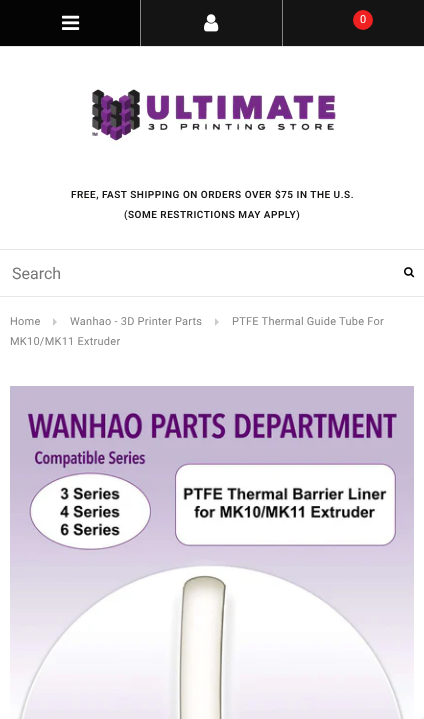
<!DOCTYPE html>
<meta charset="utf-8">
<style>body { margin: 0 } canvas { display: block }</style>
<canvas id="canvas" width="424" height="719"></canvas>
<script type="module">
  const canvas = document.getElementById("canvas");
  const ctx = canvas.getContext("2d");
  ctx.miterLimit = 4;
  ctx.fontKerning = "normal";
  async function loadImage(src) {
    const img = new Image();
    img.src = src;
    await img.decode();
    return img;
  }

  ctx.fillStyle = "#ffffff";
  ctx.fillRect(0, 0, 424, 719);
  ctx.fillStyle = "#141414";
  ctx.fillRect(141, 0, 141, 46);
  ctx.fillStyle = "#040404";
  ctx.fillRect(0, 0, 140, 46);
  ctx.fillStyle = "#868686";
  ctx.fillRect(140, 0, 1, 46);
  ctx.drawImage(await loadImage("img1.png"), 62, 15, 18, 15);
  ctx.fillRect(282, 0, 1, 46);
  ctx.drawImage(await loadImage("img2.png"), 204, 14, 15, 18);
  ctx.fillStyle = "#e7e7e7";
  ctx.fillRect(0, 46, 424, 1);
  ctx.fillStyle = "#141414";
  ctx.fillRect(283, 0, 141, 46);
  ctx.fillStyle = "#f02121";
  ctx.beginPath();
  ctx.arc(363, 20, 10, 0, Math.PI * 2);
  ctx.fill();
  ctx.letterSpacing = "0.25px";
  ctx.font = "11px Roboto";
  ctx.fillStyle = "#ffffff";
  ctx.fillText("0", 360, 23);
  ctx.letterSpacing = "0.5px";
  ctx.font = "600 10px Roboto";
  ctx.fillStyle = "#151413";
  ctx.fillText("FREE, FAST SHIPPING ON ORDERS OVER $75 IN THE U.S.", 71, 198);
  ctx.fillText("(SOME RESTRICTIONS MAY APPLY)", 124, 218);
  ctx.drawImage(await loadImage("img3.png"), 91, 87, 246, 60);
  ctx.fillStyle = "#e7e7e7";
  ctx.fillRect(0, 249, 424, 1);
  ctx.fillRect(0, 296, 424, 1);
  ctx.letterSpacing = "0px";
  ctx.font = "16px Roboto";
  ctx.fillStyle = "#757575";
  ctx.fillText("Search", 12, 279);
  ctx.drawImage(await loadImage("img4.png"), 404, 267, 11, 11);
  ctx.letterSpacing = "0.25px";
  ctx.font = "11px Roboto";
  ctx.fillStyle = "#848484";
  ctx.fillText("Home", 10, 325);
  ctx.fillStyle = "#cbcbcb";
  ctx.beginPath();
  ctx.moveTo(53, 326);
  ctx.lineTo(53, 318);
  ctx.lineTo(57, 322);
  ctx.closePath();
  ctx.fill();
  ctx.fillStyle = "#848484";
  ctx.fillText("Wanhao - 3D Printer Parts", 70, 325);
  ctx.fillStyle = "#cbcbcb";
  ctx.beginPath();
  ctx.moveTo(215, 326);
  ctx.lineTo(215, 318);
  ctx.lineTo(219, 322);
  ctx.closePath();
  ctx.fill();
  ctx.fillStyle = "#848484";
  ctx.fillText("PTFE Thermal Guide Tube For", 232, 325);
  ctx.fillText("MK10/MK11 Extruder", 10, 345);
  ctx.drawImage(await loadImage("img5.png"), 10, 386, 404, 333);
  ctx.fillStyle = "#f5f5f5";
  ctx.fillRect(422, 717, 2, 2);
</script>
